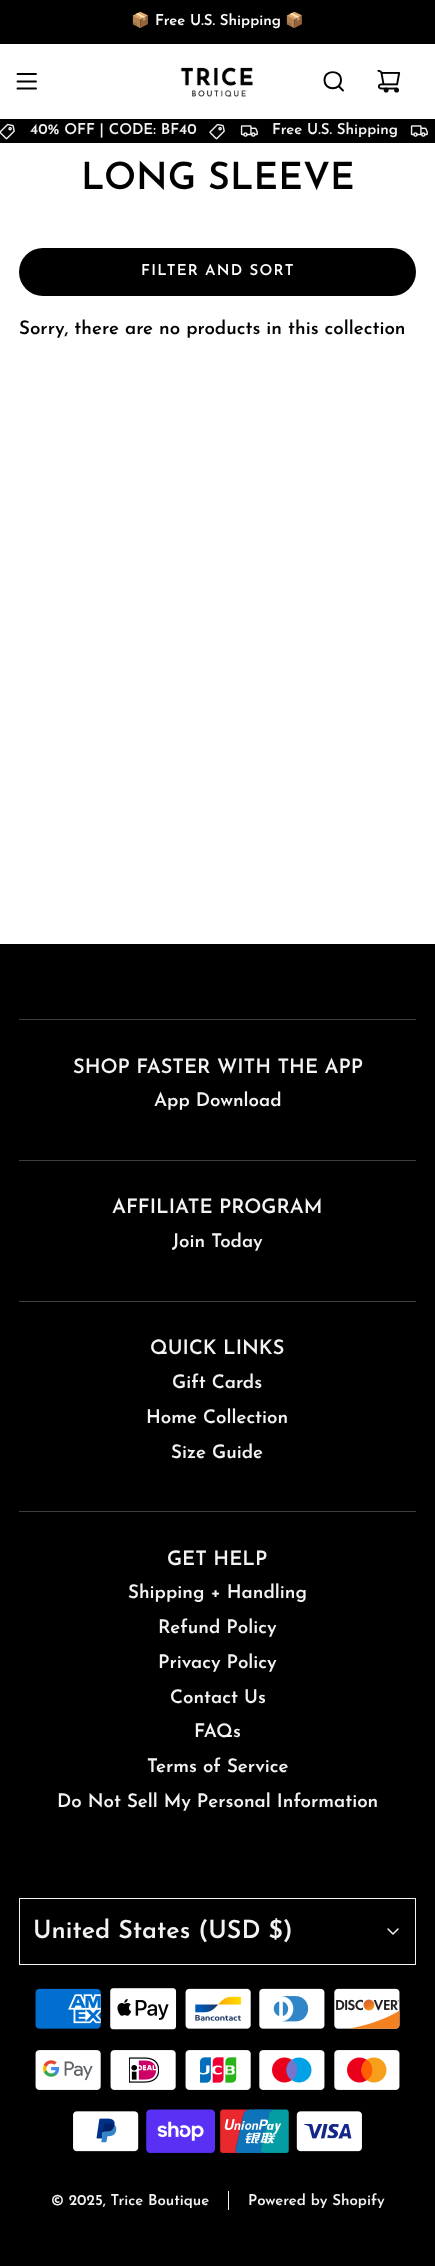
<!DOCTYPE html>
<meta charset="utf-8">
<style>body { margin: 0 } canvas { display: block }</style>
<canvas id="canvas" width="435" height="2266"></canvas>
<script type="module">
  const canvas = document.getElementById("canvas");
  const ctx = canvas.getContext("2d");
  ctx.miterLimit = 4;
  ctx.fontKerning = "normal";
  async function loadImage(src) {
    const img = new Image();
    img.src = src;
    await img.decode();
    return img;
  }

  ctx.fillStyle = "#ffffff";
  ctx.fillRect(0, 0, 435, 2266);
  ctx.fillStyle = "#000000";
  ctx.fillRect(0, 0, 435, 44);
  ctx.font = "bold 15px Noto Color Emoji";
  ctx.fillStyle = "#ffffff";
  ctx.fillText("📦", 131, 25);
  ctx.font = "600 15px Josefin Sans";
  ctx.fillText("Free U.S. Shipping", 155, 25);
  ctx.font = "bold 15px Noto Color Emoji";
  ctx.fillText("📦", 285, 25);
  ctx.beginPath();
  ctx.moveTo(17.5, 74);
  ctx.lineTo(36, 74);
  ctx.moveTo(17.5, 81.5);
  ctx.lineTo(36, 81.5);
  ctx.moveTo(17.5, 88.5);
  ctx.lineTo(36, 88.5);
  ctx.strokeStyle = "#000000";
  ctx.lineWidth = 1.9;
  ctx.lineCap = "round";
  ctx.lineJoin = "round";
  ctx.stroke();
  ctx.drawImage(await loadImage("img1.png"), 180, 67, 73, 30);
  ctx.beginPath();
  ctx.moveTo(339, 86.5);
  ctx.lineTo(343, 90.5);
  ctx.moveTo(324.5, 80);
  ctx.bezierCurveTo(324.5, 91, 341, 91, 341, 80);
  ctx.bezierCurveTo(341, 69.5, 324.5, 69.5, 324.5, 80);
  ctx.closePath();
  ctx.stroke();
  ctx.drawImage(await loadImage("img2.png"), 377, 69, 24, 24);
  ctx.fillStyle = "#000000";
  ctx.fillRect(0, 119, 435, 24);
  ctx.drawImage(await loadImage("img3.png"), 0, 123, 15, 17);
  ctx.font = "600 15px Josefin Sans";
  ctx.fillStyle = "#f3f3f3";
  ctx.fillText("40% OFF | CODE: BF40", 30, 134);
  ctx.drawImage(await loadImage("img4.png"), 209, 123, 16, 17);
  ctx.drawImage(await loadImage("img5.png"), 240, 125, 18, 12);
  ctx.fillText("Free U.S. Shipping", 272, 134);
  ctx.drawImage(await loadImage("img5.png"), 410, 125, 18, 12);
  ctx.font = "600 37.5px Josefin Sans";
  ctx.fillStyle = "#000000";
  ctx.fillText("LONG SLEEVE", 81, 189);
  ctx.beginPath();
  ctx.roundRect(19, 248, 397, 48, 24);
  ctx.fill();
  ctx.letterSpacing = "1.25px";
  ctx.font = "600 15px Josefin Sans";
  ctx.fillStyle = "#ffffff";
  ctx.fillText("FILTER AND SORT", 141, 275);
  ctx.letterSpacing = "0px";
  ctx.font = "600 18.75px Josefin Sans";
  ctx.fillStyle = "#000000";
  ctx.fillText("Sorry, there are no products in this collection", 19, 334);
  ctx.fillRect(0, 944, 435, 1322);
  ctx.fillStyle = "#3d3d3d";
  ctx.fillRect(19, 1019, 397, 1);
  ctx.font = "600 20px Josefin Sans";
  ctx.fillStyle = "#f3f3f3";
  ctx.fillText("SHOP FASTER WITH THE APP", 73, 1073);
  ctx.font = "600 18.75px Josefin Sans";
  ctx.fillText("App Download", 154, 1106);
  ctx.fillStyle = "#3d3d3d";
  ctx.fillRect(19, 1160, 397, 1);
  ctx.font = "600 20px Josefin Sans";
  ctx.fillStyle = "#f3f3f3";
  ctx.fillText("AFFILIATE PROGRAM", 112, 1213);
  ctx.font = "600 18.75px Josefin Sans";
  ctx.fillText("Join Today", 172, 1247);
  ctx.fillStyle = "#3d3d3d";
  ctx.fillRect(19, 1301, 397, 1);
  ctx.font = "600 20px Josefin Sans";
  ctx.fillStyle = "#f3f3f3";
  ctx.fillText("QUICK LINKS", 150, 1354);
  ctx.font = "600 18.75px Josefin Sans";
  ctx.fillText("Gift Cards", 172, 1388);
  ctx.fillText("Home Collection", 146, 1423);
  ctx.fillText("Size Guide", 171, 1458);
  ctx.fillStyle = "#3d3d3d";
  ctx.fillRect(19, 1511, 397, 1);
  ctx.font = "600 20px Josefin Sans";
  ctx.fillStyle = "#f3f3f3";
  ctx.fillText("GET HELP", 167, 1565);
  ctx.font = "600 18.75px Josefin Sans";
  ctx.fillText("Shipping + Handling", 128, 1598);
  ctx.fillText("Refund Policy", 158, 1633);
  ctx.fillText("Privacy Policy", 158, 1668);
  ctx.fillText("Contact Us", 170, 1703);
  ctx.fillText("FAQs", 194, 1737);
  ctx.fillText("Terms of Service", 147, 1772);
  ctx.fillText("Do Not Sell My Personal Information", 57, 1807);
  ctx.strokeStyle = "#f3f3f3";
  ctx.lineWidth = 1;
  ctx.lineJoin = "miter";
  ctx.strokeRect(19.5, 1898.5, 396, 66);
  ctx.font = "600 25px Josefin Sans";
  ctx.fillText("United States (USD $)", 33, 1938);
  ctx.beginPath();
  ctx.moveTo(388, 1929);
  ctx.lineTo(393, 1934);
  ctx.lineTo(398, 1929);
  ctx.lineWidth = 1.5;
  ctx.lineJoin = "round";
  ctx.stroke();
  ctx.drawImage(await loadImage("img6.png"), 35, 1988, 66, 41);
  ctx.drawImage(await loadImage("img7.png"), 110, 1988, 67, 42);
  ctx.drawImage(await loadImage("img8.png"), 185, 1988, 66, 41);
  ctx.drawImage(await loadImage("img9.png"), 259, 1988, 66, 41);
  ctx.drawImage(await loadImage("img10.png"), 334, 1988, 66, 41);
  ctx.drawImage(await loadImage("img11.png"), 35, 2050, 66, 40);
  ctx.drawImage(await loadImage("img12.png"), 110, 2050, 66, 40);
  ctx.drawImage(await loadImage("img13.png"), 185, 2050, 66, 40);
  ctx.drawImage(await loadImage("img14.png"), 259, 2050, 66, 40);
  ctx.drawImage(await loadImage("img15.png"), 334, 2050, 66, 40);
  ctx.drawImage(await loadImage("img16.png"), 73, 2111, 66, 41);
  ctx.drawImage(await loadImage("img17.png"), 146, 2109, 69, 44);
  ctx.drawImage(await loadImage("img18.png"), 220, 2109, 69, 44);
  ctx.drawImage(await loadImage("img19.png"), 296, 2111, 66, 41);
  ctx.font = "600 15px Josefin Sans";
  ctx.fillText("© 2025, Trice Boutique", 51, 2205);
  ctx.fillRect(228, 2191, 1, 19);
  ctx.fillText("Powered by Shopify", 248, 2205);
</script>
